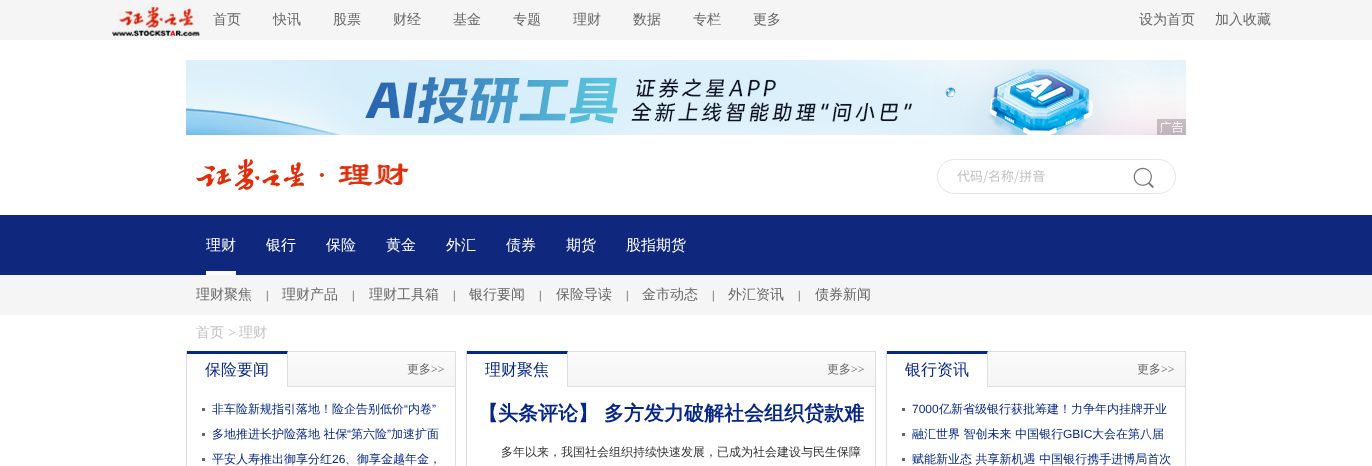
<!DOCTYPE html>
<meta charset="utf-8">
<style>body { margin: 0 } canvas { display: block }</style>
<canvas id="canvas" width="1372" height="466"></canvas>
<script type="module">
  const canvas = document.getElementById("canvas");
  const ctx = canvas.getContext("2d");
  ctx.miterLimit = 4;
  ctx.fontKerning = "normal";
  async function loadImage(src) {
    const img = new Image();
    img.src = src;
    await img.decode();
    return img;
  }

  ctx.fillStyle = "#ffffff";
  ctx.fillRect(0, 0, 1372, 466);
  ctx.fillStyle = "#f5f5f5";
  ctx.fillRect(0, 0, 1372, 40);
  ctx.drawImage(await loadImage("img1.png"), 112, 3, 88, 34);
  ctx.font = "500 14px WenQuanYi Zen Hei";
  ctx.fillStyle = "#666666";
  ctx.fillText("首页", 213, 24);
  ctx.fillText("快讯", 273, 24);
  ctx.fillText("股票", 333, 24);
  ctx.fillText("财经", 393, 24);
  ctx.fillText("基金", 453, 24);
  ctx.fillText("专题", 513, 24);
  ctx.fillText("理财", 573, 24);
  ctx.fillText("数据", 633, 24);
  ctx.fillText("专栏", 693, 24);
  ctx.fillText("更多", 753, 24);
  ctx.fillText("设为首页", 1139, 24);
  ctx.fillText("加入收藏", 1215, 24);
  ctx.drawImage(await loadImage("img2.png"), 186, 60, 1000, 75);
  ctx.drawImage(await loadImage("img3.png"), 1157, 119, 29, 16);
  ctx.drawImage(await loadImage("img4.png"), 196, 159, 108, 31);
  ctx.drawImage(await loadImage("img5.png"), 319, 163, 90, 23);
  ctx.beginPath();
  ctx.roundRect(937.5, 159.5, 238, 34, 17);
  ctx.strokeStyle = "#e6e6e6";
  ctx.stroke();
  ctx.font = "13px Noto Sans SC";
  ctx.fillStyle = "#c4c2c2";
  ctx.fillText("代码/名称/拼音", 957, 181);
  ctx.drawImage(await loadImage("img6.png"), 1133, 167, 21, 21);
  ctx.fillStyle = "#0f287d";
  ctx.fillRect(0, 215, 1372, 60);
  ctx.fillStyle = "#fcfcfe";
  ctx.fillRect(206, 271, 30, 4);
  ctx.font = "500 15px WenQuanYi Zen Hei";
  ctx.fillStyle = "#ffffff";
  ctx.fillText("理财", 206, 250);
  ctx.fillText("银行", 266, 250);
  ctx.fillText("保险", 326, 250);
  ctx.fillText("黄金", 386, 250);
  ctx.fillText("外汇", 446, 250);
  ctx.fillText("债券", 506, 250);
  ctx.fillText("期货", 566, 250);
  ctx.fillText("股指期货", 626, 250);
  ctx.fillStyle = "#f5f5f5";
  ctx.fillRect(0, 275, 1372, 40);
  ctx.font = "500 14px WenQuanYi Zen Hei";
  ctx.fillStyle = "#666666";
  ctx.fillText("理财聚焦", 196, 299);
  ctx.font = "12px Liberation Serif";
  ctx.fillStyle = "#333333";
  ctx.fillText("|", 266, 299);
  ctx.font = "500 14px WenQuanYi Zen Hei";
  ctx.fillStyle = "#666666";
  ctx.fillText("理财产品", 282, 299);
  ctx.font = "12px Liberation Serif";
  ctx.fillStyle = "#333333";
  ctx.fillText("|", 352, 299);
  ctx.font = "500 14px WenQuanYi Zen Hei";
  ctx.fillStyle = "#666666";
  ctx.fillText("理财工具箱", 369, 299);
  ctx.font = "12px Liberation Serif";
  ctx.fillStyle = "#333333";
  ctx.fillText("|", 453, 299);
  ctx.font = "500 14px WenQuanYi Zen Hei";
  ctx.fillStyle = "#666666";
  ctx.fillText("银行要闻", 469, 299);
  ctx.font = "12px Liberation Serif";
  ctx.fillStyle = "#333333";
  ctx.fillText("|", 539, 299);
  ctx.font = "500 14px WenQuanYi Zen Hei";
  ctx.fillStyle = "#666666";
  ctx.fillText("保险导读", 556, 299);
  ctx.font = "12px Liberation Serif";
  ctx.fillStyle = "#333333";
  ctx.fillText("|", 626, 299);
  ctx.font = "500 14px WenQuanYi Zen Hei";
  ctx.fillStyle = "#666666";
  ctx.fillText("金市动态", 642, 299);
  ctx.font = "12px Liberation Serif";
  ctx.fillStyle = "#333333";
  ctx.fillText("|", 712, 299);
  ctx.font = "500 14px WenQuanYi Zen Hei";
  ctx.fillStyle = "#666666";
  ctx.fillText("外汇资讯", 728, 299);
  ctx.font = "12px Liberation Serif";
  ctx.fillStyle = "#333333";
  ctx.fillText("|", 798, 299);
  ctx.font = "500 14px WenQuanYi Zen Hei";
  ctx.fillStyle = "#666666";
  ctx.fillText("债券新闻", 815, 299);
  ctx.fillStyle = "#c4c2c2";
  ctx.fillText("首页", 196, 337);
  ctx.font = "14px Liberation Serif";
  ctx.fillText(">", 228, 337);
  ctx.font = "500 14px WenQuanYi Zen Hei";
  ctx.fillText("理财", 239, 337);
  ctx.fillStyle = "#dadee1";
  ctx.fillRect(455, 351, 1, 115);
  ctx.fillRect(186, 351, 1, 115);
  ctx.drawImage(await loadImage("img7.png"), 288, 351, 167, 36);
  ctx.fillStyle = "#062784";
  ctx.beginPath();
  ctx.moveTo(187, 351);
  ctx.lineTo(288, 351);
  ctx.lineTo(287, 354);
  ctx.lineTo(187, 354);
  ctx.closePath();
  ctx.fill();
  ctx.fillStyle = "#dadee1";
  ctx.beginPath();
  ctx.moveTo(288, 351);
  ctx.lineTo(288, 387);
  ctx.lineTo(287, 387);
  ctx.lineTo(287, 354);
  ctx.closePath();
  ctx.fill();
  ctx.font = "500 16px WenQuanYi Zen Hei";
  ctx.fillStyle = "#062786";
  ctx.fillText("保险要闻", 205, 375);
  ctx.font = "500 12px WenQuanYi Zen Hei";
  ctx.fillStyle = "#666666";
  ctx.fillText("更多", 407, 373);
  ctx.font = "12px Liberation Serif";
  ctx.fillText(">>", 431, 373);
  ctx.fillRect(202, 408, 3, 3);
  ctx.font = "500 12px WenQuanYi Zen Hei";
  ctx.fillStyle = "#062786";
  ctx.fillText("非车险新规指引落地！险企告别低价", 212, 413);
  ctx.font = "12px Liberation Sans";
  ctx.fillText("“", 404, 413);
  ctx.font = "500 12px WenQuanYi Zen Hei";
  ctx.fillText("内卷", 408, 413);
  ctx.font = "12px Liberation Sans";
  ctx.fillText("”", 432, 413);
  ctx.fillStyle = "#666666";
  ctx.fillRect(202, 433, 3, 3);
  ctx.font = "500 12px WenQuanYi Zen Hei";
  ctx.fillStyle = "#062786";
  ctx.fillText("多地推进长护险落地 社保", 212, 438);
  ctx.font = "12px Liberation Sans";
  ctx.fillText("“", 347, 438);
  ctx.font = "500 12px WenQuanYi Zen Hei";
  ctx.fillText("第六险", 351, 438);
  ctx.font = "12px Liberation Sans";
  ctx.fillText("”", 387, 438);
  ctx.font = "500 12px WenQuanYi Zen Hei";
  ctx.fillText("加速扩面", 391, 438);
  ctx.fillStyle = "#666666";
  ctx.fillRect(202, 458, 3, 3);
  ctx.fillStyle = "#062786";
  ctx.fillText("平安人寿推出御享分红", 212, 463);
  ctx.font = "12px Liberation Sans";
  ctx.fillText("26", 332, 463);
  ctx.font = "500 12px WenQuanYi Zen Hei";
  ctx.fillText("、御享金越年金，", 345, 463);
  ctx.fillStyle = "#dadee1";
  ctx.fillRect(875, 351, 1, 115);
  ctx.fillRect(466, 351, 1, 115);
  ctx.drawImage(await loadImage("img8.png"), 568, 351, 307, 36);
  ctx.fillStyle = "#062784";
  ctx.beginPath();
  ctx.moveTo(467, 351);
  ctx.lineTo(568, 351);
  ctx.lineTo(567, 354);
  ctx.lineTo(467, 354);
  ctx.closePath();
  ctx.fill();
  ctx.fillStyle = "#dadee1";
  ctx.beginPath();
  ctx.moveTo(568, 351);
  ctx.lineTo(568, 387);
  ctx.lineTo(567, 387);
  ctx.lineTo(567, 354);
  ctx.closePath();
  ctx.fill();
  ctx.font = "500 16px WenQuanYi Zen Hei";
  ctx.fillStyle = "#062786";
  ctx.fillText("理财聚焦", 485, 375);
  ctx.font = "500 12px WenQuanYi Zen Hei";
  ctx.fillStyle = "#666666";
  ctx.fillText("更多", 827, 373);
  ctx.font = "12px Liberation Serif";
  ctx.fillText(">>", 851, 373);
  ctx.font = "bold 20px WenQuanYi Zen Hei";
  ctx.fillStyle = "#062786";
  ctx.fillText("【头条评论】 多方发力破解社会组织贷款难", 478, 420);
  ctx.font = "500 12px WenQuanYi Zen Hei";
  ctx.fillStyle = "#333333";
  ctx.fillText("多年以来，我国社会组织持续快速发展，已成为社会建设与民生保障", 501, 456);
  ctx.fillStyle = "#dadee1";
  ctx.fillRect(1185, 351, 1, 115);
  ctx.fillRect(886, 351, 1, 115);
  ctx.drawImage(await loadImage("img9.png"), 988, 351, 197, 36);
  ctx.fillStyle = "#062784";
  ctx.beginPath();
  ctx.moveTo(887, 351);
  ctx.lineTo(988, 351);
  ctx.lineTo(987, 354);
  ctx.lineTo(887, 354);
  ctx.closePath();
  ctx.fill();
  ctx.fillStyle = "#dadee1";
  ctx.beginPath();
  ctx.moveTo(988, 351);
  ctx.lineTo(988, 387);
  ctx.lineTo(987, 387);
  ctx.lineTo(987, 354);
  ctx.closePath();
  ctx.fill();
  ctx.font = "500 16px WenQuanYi Zen Hei";
  ctx.fillStyle = "#062786";
  ctx.fillText("银行资讯", 905, 375);
  ctx.font = "500 12px WenQuanYi Zen Hei";
  ctx.fillStyle = "#666666";
  ctx.fillText("更多", 1137, 373);
  ctx.font = "12px Liberation Serif";
  ctx.fillText(">>", 1161, 373);
  ctx.fillRect(902, 408, 3, 3);
  ctx.font = "12px Liberation Sans";
  ctx.fillStyle = "#062786";
  ctx.fillText("7000", 912, 413);
  ctx.font = "500 12px WenQuanYi Zen Hei";
  ctx.fillText("亿新省级银行获批筹建！力争年内挂牌开业", 939, 413);
  ctx.fillStyle = "#666666";
  ctx.fillRect(902, 433, 3, 3);
  ctx.fillStyle = "#062786";
  ctx.fillText("融汇世界 智创未来 中国银行", 912, 438);
  ctx.font = "12px Liberation Sans";
  ctx.fillText("GBIC", 1063, 438);
  ctx.font = "500 12px WenQuanYi Zen Hei";
  ctx.fillText("大会在第八届", 1092, 438);
  ctx.fillStyle = "#666666";
  ctx.fillRect(902, 458, 3, 3);
  ctx.fillStyle = "#062786";
  ctx.fillText("赋能新业态 共享新机遇 中国银行携手进博局首次", 912, 463);
</script>
